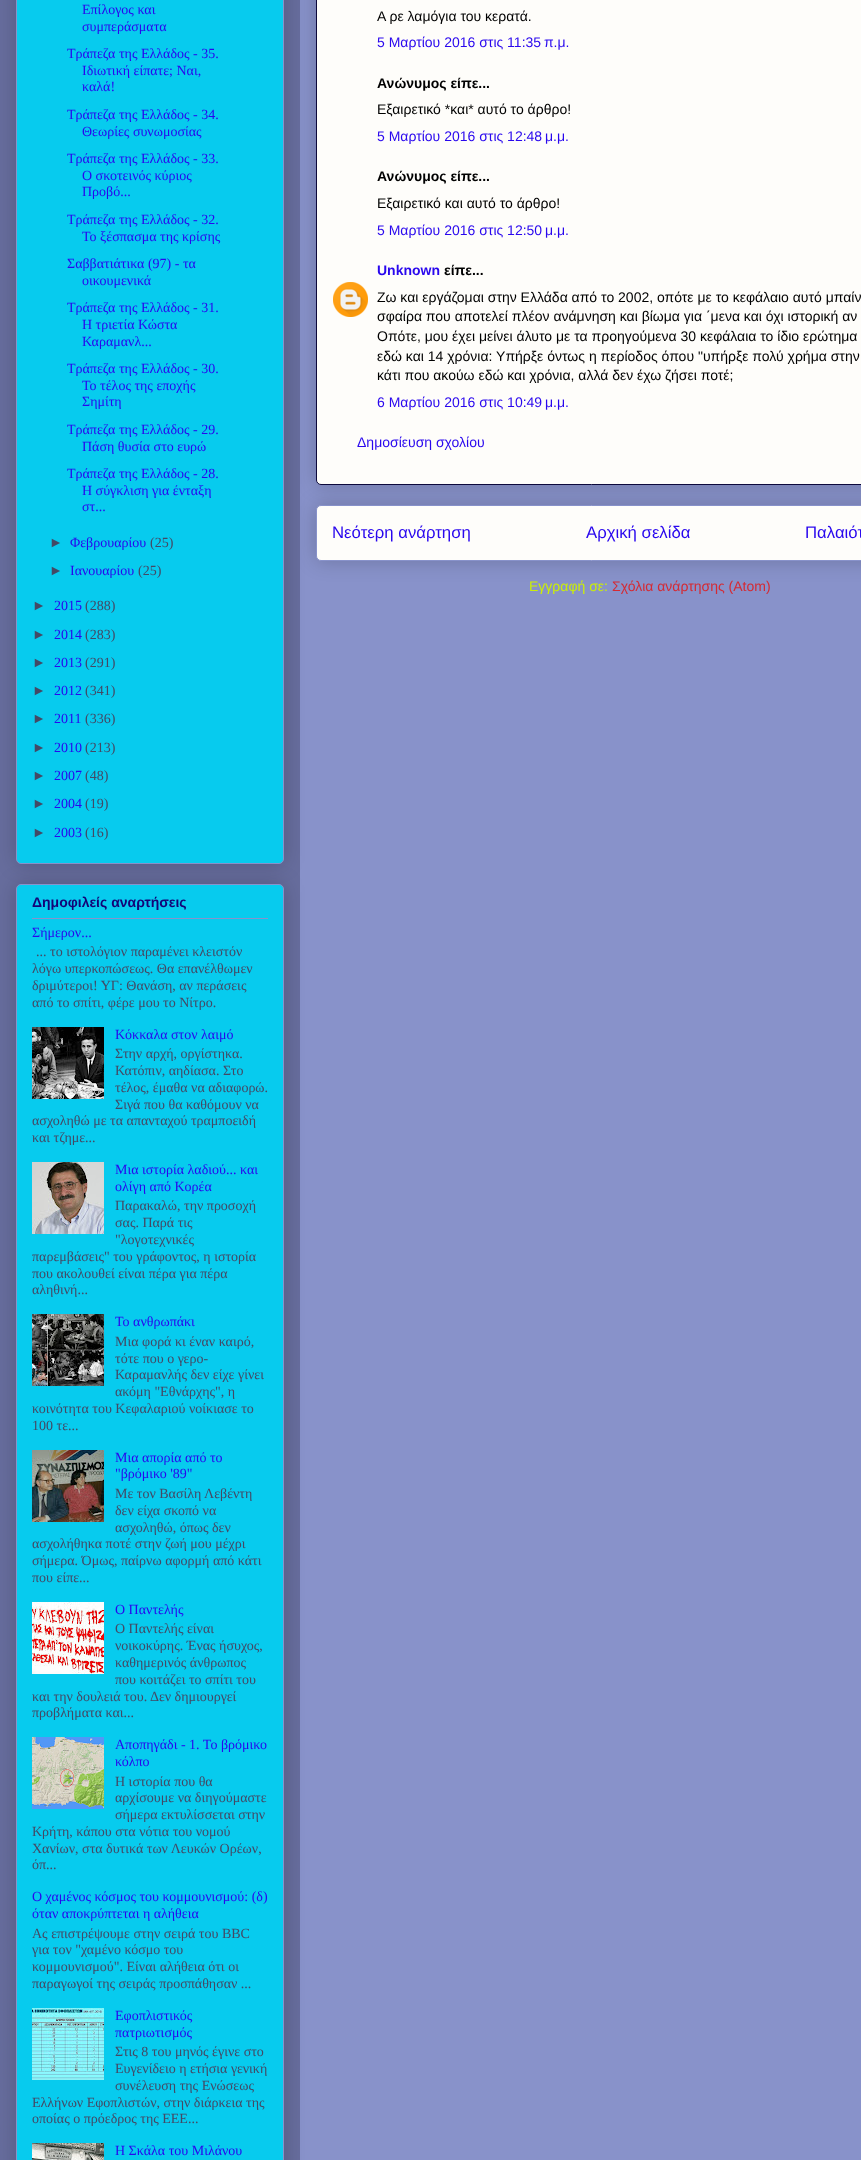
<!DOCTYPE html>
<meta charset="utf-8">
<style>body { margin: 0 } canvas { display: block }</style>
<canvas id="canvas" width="861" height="2160"></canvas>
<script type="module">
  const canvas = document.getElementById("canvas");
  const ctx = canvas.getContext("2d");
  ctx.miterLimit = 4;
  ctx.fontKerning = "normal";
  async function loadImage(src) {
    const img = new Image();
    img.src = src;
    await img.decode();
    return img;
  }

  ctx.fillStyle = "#8892ca";
  ctx.fillRect(0, 0, 861, 2160);
  ctx.fillStyle = "rgba(0, 0, 0, 0.2)";
  ctx.filter = "blur(10px)";
  ctx.beginPath();
  ctx.roundRect(316, 505, 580, 56, 5);
  ctx.fill();
  ctx.filter = "none";
  ctx.fillStyle = "#fefdfa";
  ctx.beginPath();
  ctx.roundRect(316.5, 505.5, 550, 55, 4.5);
  ctx.fill();
  ctx.strokeStyle = "#8892ca";
  ctx.stroke();
  ctx.fillStyle = "rgba(0, 0, 0, 0.2)";
  ctx.filter = "blur(10px)";
  ctx.beginPath();
  ctx.roundRect(316, -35, 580, 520, 5);
  ctx.fill();
  ctx.filter = "none";
  ctx.fillStyle = "#676d9d";
  ctx.fillRect(0, 0, 300, 2160);
  ctx.fillStyle = "rgba(0, 0, 0, 0.2)";
  ctx.filter = "blur(10px)";
  ctx.beginPath();
  ctx.roundRect(16, -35, 268, 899, 5);
  ctx.fill();
  ctx.filter = "none";
  ctx.fillStyle = "#07cbee";
  ctx.beginPath();
  ctx.roundRect(16.5, -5.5, 267, 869, 4.5);
  ctx.fill();
  ctx.stroke();
  ctx.font = "14px Liberation Serif";
  ctx.fillStyle = "#2907ee";
  ctx.fillText("Επίλογος και", 82, 14);
  ctx.fillText("συμπεράσματα", 82, 31);
  ctx.fillText("Τράπεζα της Ελλάδος - 35.", 67, 58);
  ctx.fillText("Ιδιωτική είπατε; Ναι,", 82, 75);
  ctx.fillText("καλά!", 82, 91);
  ctx.fillText("Τράπεζα της Ελλάδος - 34.", 67, 119);
  ctx.fillText("Θεωρίες συνωμοσίας", 82, 136);
  ctx.fillText("Τράπεζα της Ελλάδος - 33.", 67, 163);
  ctx.fillText("Ο σκοτεινός κύριος", 82, 180);
  ctx.fillText("Προβό...", 82, 196);
  ctx.fillText("Τράπεζα της Ελλάδος - 32.", 67, 224);
  ctx.fillText("Το ξέσπασμα της κρίσης", 82, 241);
  ctx.fillText("Σαββατιάτικα (97) - τα", 67, 268);
  ctx.fillText("οικουμενικά", 82, 285);
  ctx.fillText("Τράπεζα της Ελλάδος - 31.", 67, 312);
  ctx.fillText("Η τριετία Κώστα", 82, 329);
  ctx.fillText("Καραμανλ...", 82, 346);
  ctx.fillText("Τράπεζα της Ελλάδος - 30.", 67, 373);
  ctx.fillText("Το τέλος της εποχής", 82, 390);
  ctx.fillText("Σημίτη", 82, 406);
  ctx.fillText("Τράπεζα της Ελλάδος - 29.", 67, 434);
  ctx.fillText("Πάση θυσία στο ευρώ", 82, 451);
  ctx.fillText("Τράπεζα της Ελλάδος - 28.", 67, 478);
  ctx.fillText("Η σύγκλιση για ένταξη", 82, 495);
  ctx.fillText("στ...", 82, 511);
  ctx.font = "14px Liberation Sans";
  ctx.fillStyle = "#444965";
  ctx.fillText("►", 49, 547);
  ctx.font = "14px Liberation Serif";
  ctx.fillStyle = "#2907ee";
  ctx.fillText("Φεβρουαρίου", 70, 547);
  ctx.fillStyle = "#444965";
  ctx.fillText("(25)", 150, 547);
  ctx.font = "14px Liberation Sans";
  ctx.fillText("►", 49, 575);
  ctx.font = "14px Liberation Serif";
  ctx.fillStyle = "#2907ee";
  ctx.fillText("Ιανουαρίου", 70, 575);
  ctx.fillStyle = "#444965";
  ctx.fillText("(25)", 138, 575);
  ctx.font = "14px Liberation Sans";
  ctx.fillText("►", 32, 610);
  ctx.font = "14px Liberation Serif";
  ctx.fillStyle = "#2907ee";
  ctx.fillText("2015", 54, 610);
  ctx.fillStyle = "#444965";
  ctx.fillText("(288)", 85, 610);
  ctx.font = "14px Liberation Sans";
  ctx.fillText("►", 32, 639);
  ctx.font = "14px Liberation Serif";
  ctx.fillStyle = "#2907ee";
  ctx.fillText("2014", 54, 639);
  ctx.fillStyle = "#444965";
  ctx.fillText("(283)", 85, 639);
  ctx.font = "14px Liberation Sans";
  ctx.fillText("►", 32, 667);
  ctx.font = "14px Liberation Serif";
  ctx.fillStyle = "#2907ee";
  ctx.fillText("2013", 54, 667);
  ctx.fillStyle = "#444965";
  ctx.fillText("(291)", 85, 667);
  ctx.font = "14px Liberation Sans";
  ctx.fillText("►", 32, 695);
  ctx.font = "14px Liberation Serif";
  ctx.fillStyle = "#2907ee";
  ctx.fillText("2012", 54, 695);
  ctx.fillStyle = "#444965";
  ctx.fillText("(341)", 85, 695);
  ctx.font = "14px Liberation Sans";
  ctx.fillText("►", 32, 723);
  ctx.font = "14px Liberation Serif";
  ctx.fillStyle = "#2907ee";
  ctx.fillText("2011", 54, 723);
  ctx.fillStyle = "#444965";
  ctx.fillText("(336)", 85, 723);
  ctx.font = "14px Liberation Sans";
  ctx.fillText("►", 32, 752);
  ctx.font = "14px Liberation Serif";
  ctx.fillStyle = "#2907ee";
  ctx.fillText("2010", 54, 752);
  ctx.fillStyle = "#444965";
  ctx.fillText("(213)", 85, 752);
  ctx.font = "14px Liberation Sans";
  ctx.fillText("►", 32, 780);
  ctx.font = "14px Liberation Serif";
  ctx.fillStyle = "#2907ee";
  ctx.fillText("2007", 54, 780);
  ctx.fillStyle = "#444965";
  ctx.fillText("(48)", 85, 780);
  ctx.font = "14px Liberation Sans";
  ctx.fillText("►", 32, 808);
  ctx.font = "14px Liberation Serif";
  ctx.fillStyle = "#2907ee";
  ctx.fillText("2004", 54, 808);
  ctx.fillStyle = "#444965";
  ctx.fillText("(19)", 85, 808);
  ctx.font = "14px Liberation Sans";
  ctx.fillText("►", 32, 837);
  ctx.font = "14px Liberation Serif";
  ctx.fillStyle = "#2907ee";
  ctx.fillText("2003", 54, 837);
  ctx.fillStyle = "#444965";
  ctx.fillText("(16)", 85, 837);
  ctx.fillStyle = "rgba(0, 0, 0, 0.2)";
  ctx.filter = "blur(10px)";
  ctx.beginPath();
  ctx.roundRect(16, 884, 268, 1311, 5);
  ctx.fill();
  ctx.filter = "none";
  ctx.fillStyle = "#07cbee";
  ctx.beginPath();
  ctx.roundRect(16.5, 884.5, 267, 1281, 4.5);
  ctx.fill();
  ctx.stroke();
  ctx.font = "bold 14px Liberation Sans";
  ctx.fillStyle = "#140377";
  ctx.fillText("Δημοφιλείς αναρτήσεις", 32, 907);
  ctx.fillStyle = "#8892ca";
  ctx.fillRect(32, 918, 236, 1);
  ctx.font = "14px Liberation Serif";
  ctx.fillStyle = "#2907ee";
  ctx.fillText("Σήμερον...", 32, 937);
  ctx.fillStyle = "#444965";
  ctx.fillText("... το ιστολόγιον παραμένει κλειστόν", 36, 956);
  ctx.fillText("λόγω υπερκοπώσεως. Θα επανέλθωμεν", 32, 973);
  ctx.fillText("δριμύτεροι! ΥΓ: Θανάση, αν περάσεις", 32, 990);
  ctx.fillText("από το σπίτι, φέρε μου το Νίτρο.", 32, 1007);
  ctx.drawImage(await loadImage("img1.png"), 32, 1027, 72, 72);
  ctx.fillStyle = "#2907ee";
  ctx.fillText("Κόκκαλα στον λαιμό", 115, 1039);
  ctx.fillStyle = "#444965";
  ctx.fillText("Στην αρχή, οργίστηκα.", 115, 1058);
  ctx.fillText("Κατόπιν, αηδίασα. Στο", 115, 1075);
  ctx.fillText("τέλος, έμαθα να αδιαφορώ.", 115, 1092);
  ctx.fillText("Σιγά που θα καθόμουν να", 115, 1109);
  ctx.fillText("ασχοληθώ με τα απανταχού τραμποειδή", 32, 1125);
  ctx.fillText("και τζημε...", 32, 1142);
  ctx.drawImage(await loadImage("img2.png"), 32, 1162, 72, 72);
  ctx.fillStyle = "#2907ee";
  ctx.fillText("Μια ιστορία λαδιού... και", 115, 1174);
  ctx.fillText("ολίγη από Κορέα", 115, 1191);
  ctx.fillStyle = "#444965";
  ctx.fillText("Παρακαλώ, την προσοχή", 115, 1210);
  ctx.fillText("σας. Παρά τις", 115, 1227);
  ctx.fillText("\"λογοτεχνικές", 115, 1244);
  ctx.fillText("παρεμβάσεις\" του γράφοντος, η ιστορία", 32, 1261);
  ctx.fillText("που ακολουθεί είναι πέρα για πέρα", 32, 1278);
  ctx.fillText("αληθινή...", 32, 1294);
  ctx.drawImage(await loadImage("img3.png"), 32, 1314, 72, 72);
  ctx.fillStyle = "#2907ee";
  ctx.fillText("Το ανθρωπάκι", 115, 1326);
  ctx.fillStyle = "#444965";
  ctx.fillText("Μια φορά κι έναν καιρό,", 115, 1346);
  ctx.fillText("τότε που ο γερο-", 115, 1363);
  ctx.fillText("Καραμανλής δεν είχε γίνει", 115, 1379);
  ctx.fillText("ακόμη \"Εθνάρχης\", η", 115, 1396);
  ctx.fillText("κοινότητα του Κεφαλαριού νοίκιασε το", 32, 1413);
  ctx.fillText("100 τε...", 32, 1430);
  ctx.drawImage(await loadImage("img4.png"), 32, 1450, 72, 72);
  ctx.fillStyle = "#2907ee";
  ctx.fillText("Μια απορία από το", 115, 1462);
  ctx.fillText("\"βρόμικο '89\"", 115, 1478);
  ctx.fillStyle = "#444965";
  ctx.fillText("Με τον Βασίλη Λεβέντη", 115, 1498);
  ctx.fillText("δεν είχα σκοπό να", 115, 1515);
  ctx.fillText("ασχοληθώ, όπως δεν", 115, 1532);
  ctx.fillText("ασχολήθηκα ποτέ στην ζωή μου μέχρι", 32, 1548);
  ctx.fillText("σήμερα. Όμως, παίρνω αφορμή από κάτι", 32, 1565);
  ctx.fillText("που είπε...", 32, 1582);
  ctx.drawImage(await loadImage("img5.png"), 32, 1602, 72, 72);
  ctx.fillStyle = "#2907ee";
  ctx.fillText("Ο Παντελής", 115, 1614);
  ctx.fillStyle = "#444965";
  ctx.fillText("Ο Παντελής είναι", 115, 1633);
  ctx.fillText("νοικοκύρης. Ένας ήσυχος,", 115, 1650);
  ctx.fillText("καθημερινός άνθρωπος", 115, 1667);
  ctx.fillText("που κοιτάζει το σπίτι του", 115, 1684);
  ctx.fillText("και την δουλειά του. Δεν δημιουργεί", 32, 1701);
  ctx.fillText("προβλήματα και...", 32, 1717);
  ctx.drawImage(await loadImage("img6.png"), 32, 1737, 72, 72);
  ctx.fillStyle = "#2907ee";
  ctx.fillText("Αποπηγάδι - 1. Το βρόμικο", 115, 1749);
  ctx.fillText("κόλπο", 115, 1766);
  ctx.fillStyle = "#444965";
  ctx.fillText("Η ιστορία που θα", 115, 1786);
  ctx.fillText("αρχίσουμε να διηγούμαστε", 115, 1802);
  ctx.fillText("σήμερα εκτυλίσσεται στην", 115, 1819);
  ctx.fillText("Κρήτη, κάπου στα νότια του νομού", 32, 1836);
  ctx.fillText("Χανίων, στα δυτικά των Λευκών Ορέων,", 32, 1853);
  ctx.fillText("όπ...", 32, 1869);
  ctx.fillStyle = "#2907ee";
  ctx.fillText("Ο χαμένος κόσμος του κομμουνισμού: (δ)", 32, 1901);
  ctx.fillText("όταν αποκρύπτεται η αλήθεια", 32, 1918);
  ctx.fillStyle = "#444965";
  ctx.fillText("Ας επιστρέψουμε στην σειρά του BBC", 32, 1938);
  ctx.fillText("για τον \"χαμένο κόσμο του", 32, 1954);
  ctx.fillText("κομμουνισμού\". Είναι αλήθεια ότι οι", 32, 1971);
  ctx.fillText("παραγωγοί της σειράς προσπάθησαν ...", 32, 1988);
  ctx.drawImage(await loadImage("img7.png"), 32, 2008, 72, 72);
  ctx.fillStyle = "#2907ee";
  ctx.fillText("Εφοπλιστικός", 115, 2020);
  ctx.fillText("πατριωτισμός", 115, 2037);
  ctx.fillStyle = "#444965";
  ctx.fillText("Στις 8 του μηνός έγινε στο", 115, 2056);
  ctx.fillText("Ευγενίδειο η ετήσια γενική", 115, 2073);
  ctx.fillText("συνέλευση της Ενώσεως", 115, 2090);
  ctx.fillText("Ελλήνων Εφοπλιστών, στην διάρκεια της", 32, 2107);
  ctx.fillText("οποίας ο πρόεδρος της ΕΕΕ...", 32, 2123);
  ctx.drawImage(await loadImage("img8.png"), 32, 2143, 72, 17);
  ctx.fillStyle = "#2907ee";
  ctx.fillText("Η Σκάλα του Μιλάνου", 115, 2155);
  ctx.fillStyle = "#fefdfa";
  ctx.beginPath();
  ctx.roundRect(316.5, -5.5, 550, 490, 4.5);
  ctx.fill();
  ctx.strokeStyle = "#0c093b";
  ctx.stroke();
  ctx.font = "14px Liberation Sans";
  ctx.fillStyle = "#000000";
  ctx.fillText("Α ρε λαμόγια του κερατά.", 377, 21);
  ctx.fillStyle = "#2907ee";
  ctx.fillText("5 Μαρτίου 2016 στις 11:35 π.μ.", 377, 47);
  ctx.font = "bold 14px Liberation Sans";
  ctx.fillStyle = "#000000";
  ctx.fillText("Ανώνυμος είπε...", 377, 88);
  ctx.font = "14px Liberation Sans";
  ctx.fillText("Εξαιρετικό *και* αυτό το άρθρο!", 377, 114);
  ctx.fillStyle = "#2907ee";
  ctx.fillText("5 Μαρτίου 2016 στις 12:48 μ.μ.", 377, 141);
  ctx.font = "bold 14px Liberation Sans";
  ctx.fillStyle = "#000000";
  ctx.fillText("Ανώνυμος είπε...", 377, 181);
  ctx.font = "14px Liberation Sans";
  ctx.fillText("Εξαιρετικό και αυτό το άρθρο!", 377, 208);
  ctx.fillStyle = "#2907ee";
  ctx.fillText("5 Μαρτίου 2016 στις 12:50 μ.μ.", 377, 235);
  ctx.font = "bold 14px Liberation Sans";
  ctx.fillText("Unknown", 377, 275);
  ctx.fillStyle = "#000000";
  ctx.fillText("είπε...", 444, 275);
  ctx.drawImage(await loadImage("img9.png"), 333, 282, 35, 35);
  ctx.font = "14px Liberation Sans";
  ctx.fillText("Ζω και εργάζομαι στην Ελλάδα από το 2002, οπότε με το κεφάλαιο αυτό μπαίν", 377, 302);
  ctx.fillText("σφαίρα που αποτελεί πλέον ανάμνηση και βίωμα για ΄μενα και όχι ιστορική αν", 377, 321);
  ctx.fillText("Οπότε, μου έχει μείνει άλυτο με τα προηγούμενα 30 κεφάλαια το ίδιο ερώτημα", 377, 341);
  ctx.fillText("εδώ και 14 χρόνια: Υπήρξε όντως η περίοδος όπου \"υπήρξε πολύ χρήμα στην", 377, 361);
  ctx.fillText("κάτι που ακούω εδώ και χρόνια, αλλά δεν έχω ζήσει ποτέ;", 377, 380);
  ctx.fillStyle = "#2907ee";
  ctx.fillText("6 Μαρτίου 2016 στις 10:49 μ.μ.", 377, 407);
  ctx.fillText("Δημοσίευση σχολίου", 357, 447);
  ctx.font = "16.75px Liberation Sans";
  ctx.fillText("Νεότερη ανάρτηση", 332, 538);
  ctx.fillText("Αρχική σελίδα", 586, 538);
  ctx.fillText("Παλαιότ", 805, 538);
  ctx.font = "14px Liberation Sans";
  ctx.fillStyle = "#cbee07";
  ctx.fillText("Εγγραφή σε:", 529, 591);
  ctx.fillStyle = "#d52a33";
  ctx.fillText("Σχόλια ανάρτησης (Atom)", 612, 591);
</script>
